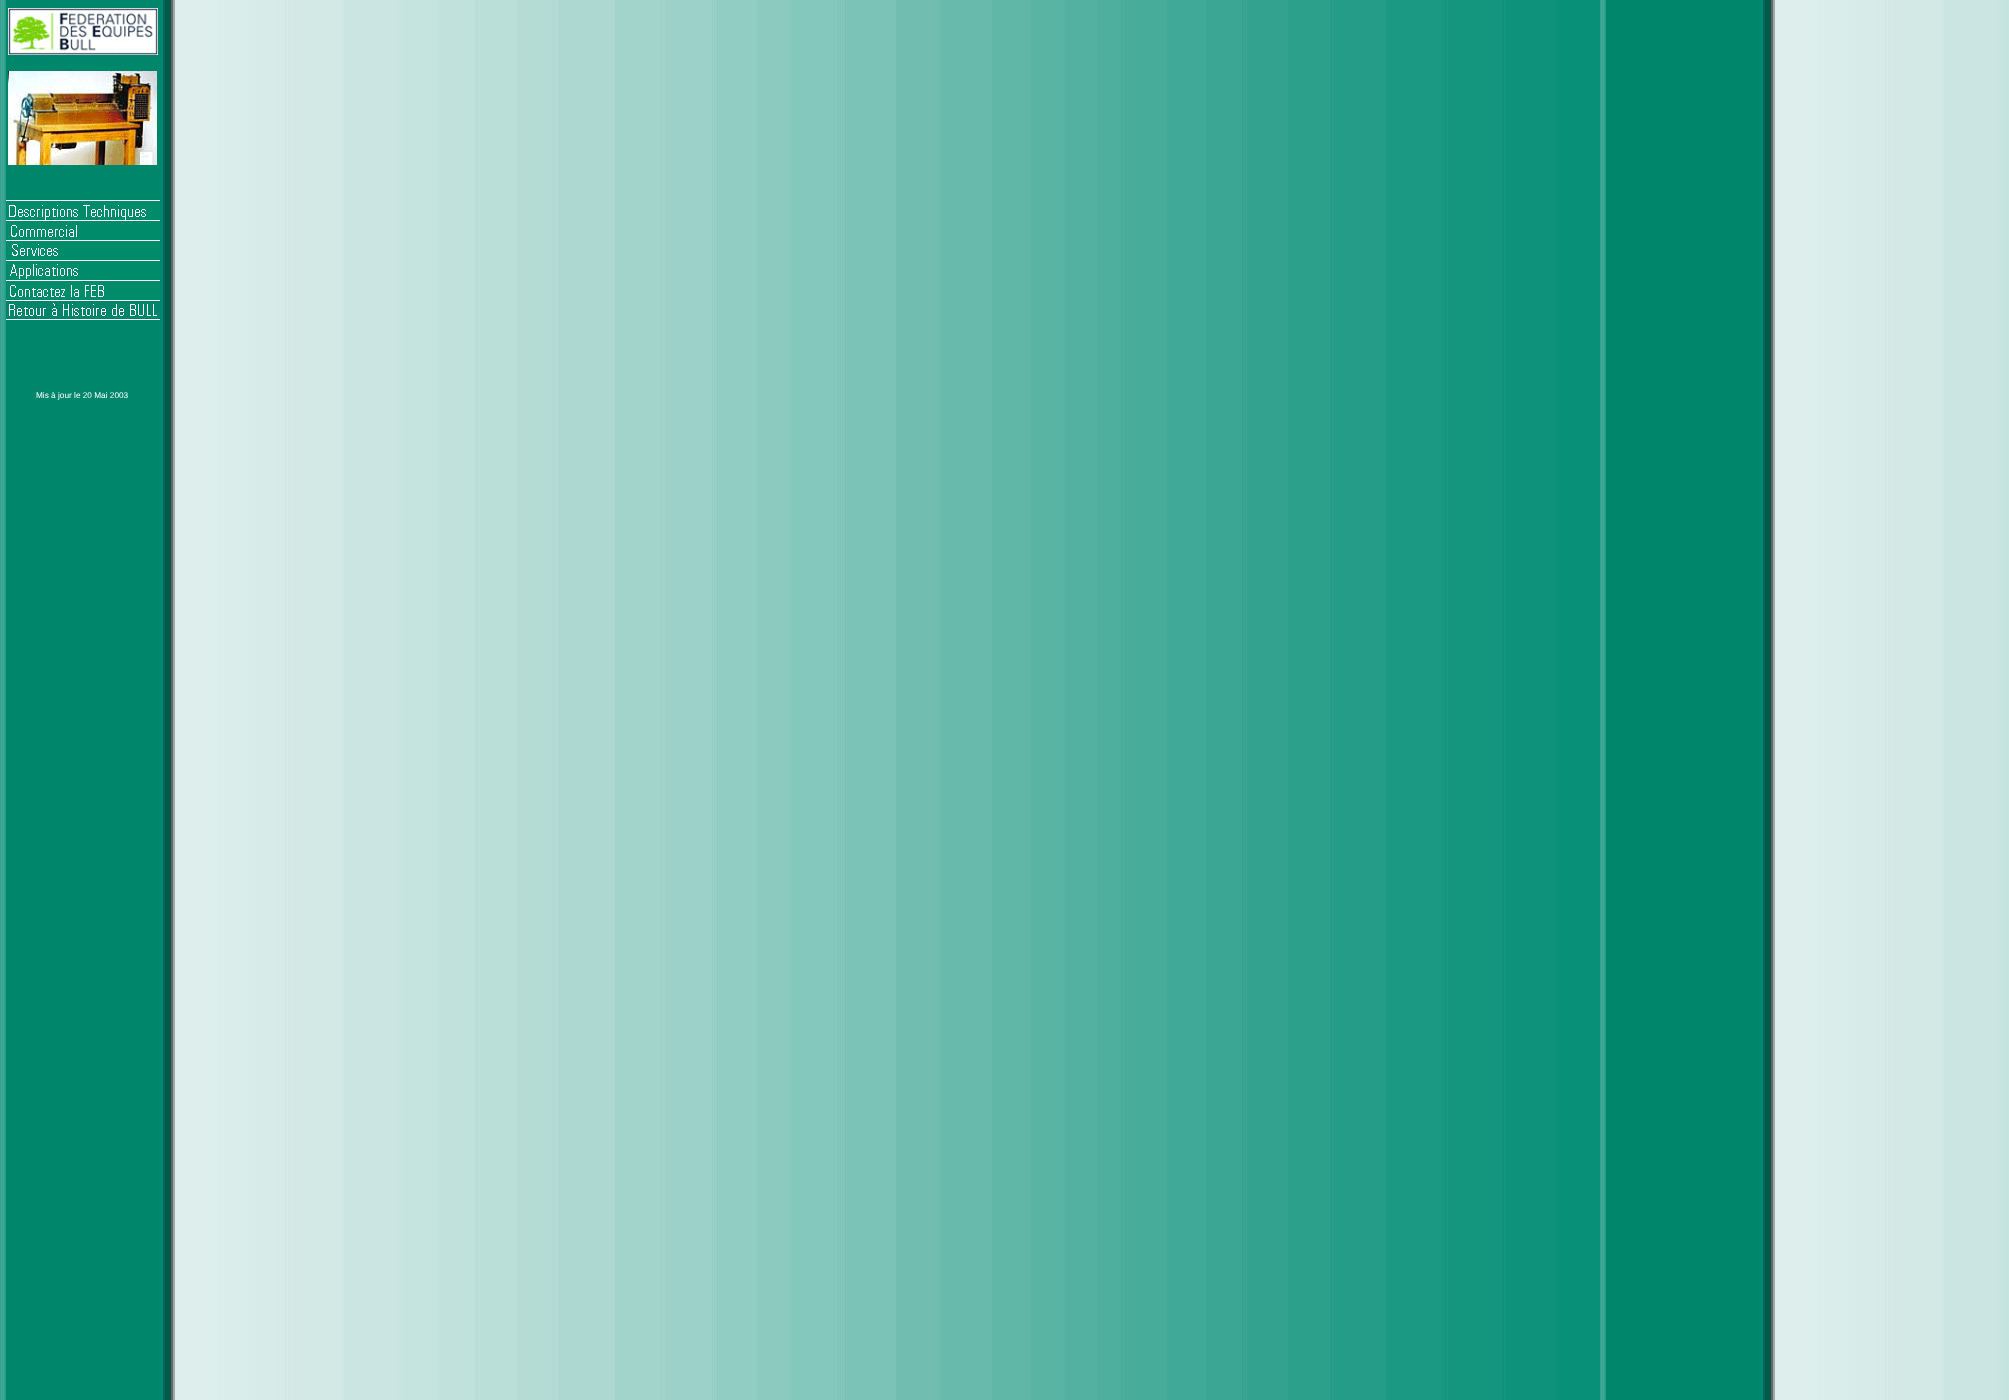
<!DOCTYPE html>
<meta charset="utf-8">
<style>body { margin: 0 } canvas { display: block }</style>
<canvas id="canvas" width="2009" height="1400"></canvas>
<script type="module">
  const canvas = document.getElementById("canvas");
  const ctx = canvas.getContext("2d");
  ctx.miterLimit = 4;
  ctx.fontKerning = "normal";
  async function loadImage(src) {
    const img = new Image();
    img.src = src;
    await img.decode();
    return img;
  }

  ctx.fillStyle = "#ffffff";
  ctx.fillRect(0, 0, 2009, 1400);
  ctx.drawImage(await loadImage("img1.png"), 0, 0, 2009, 1400);
  ctx.drawImage(await loadImage("img2.png"), 8, 8, 150, 47);
  ctx.drawImage(await loadImage("img3.png"), 8, 71, 149, 94);
  ctx.drawImage(await loadImage("img4.png"), 6, 200, 154, 20);
  ctx.drawImage(await loadImage("img5.png"), 6, 220, 154, 20);
  ctx.drawImage(await loadImage("img6.png"), 6, 240, 154, 20);
  ctx.drawImage(await loadImage("img7.png"), 6, 260, 154, 20);
  ctx.drawImage(await loadImage("img8.png"), 6, 280, 154, 20);
  ctx.drawImage(await loadImage("img9.png"), 6, 300, 154, 20);
  ctx.font = "8.25px Liberation Sans";
  ctx.fillText("Mis à jour le 20 Mai 2003", 36, 398);
</script>
